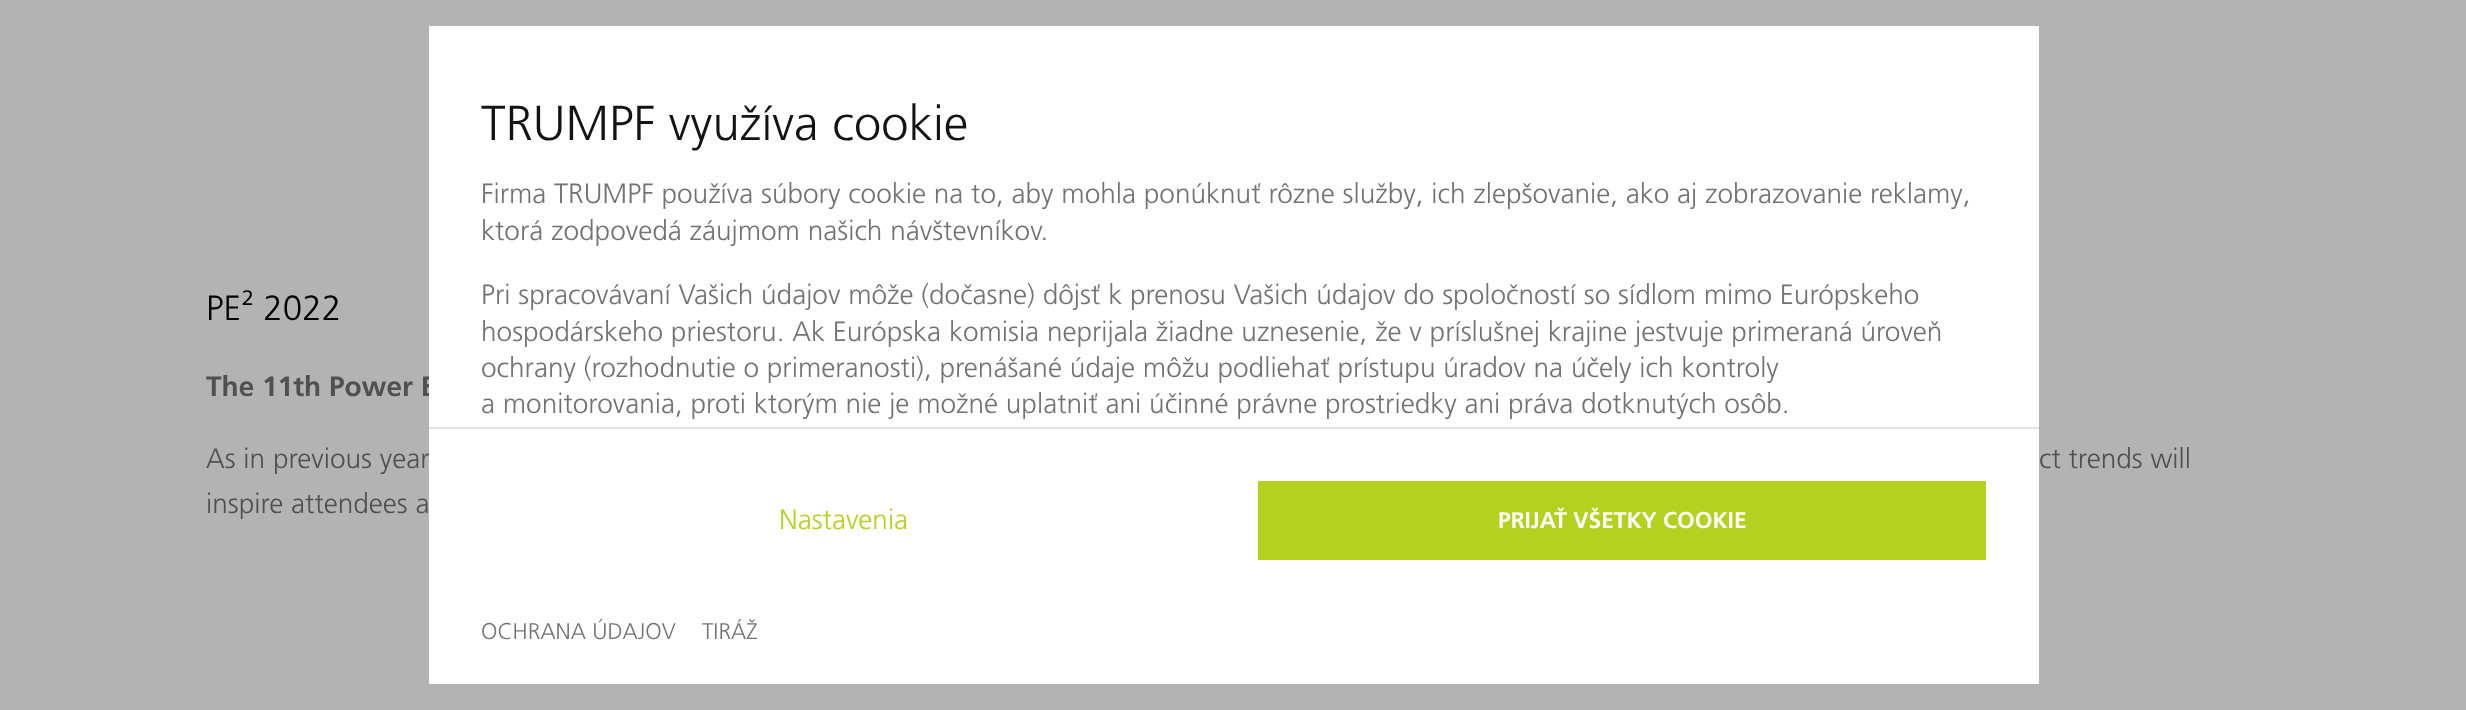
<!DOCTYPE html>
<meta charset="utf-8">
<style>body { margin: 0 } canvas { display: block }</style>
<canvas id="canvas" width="2466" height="710"></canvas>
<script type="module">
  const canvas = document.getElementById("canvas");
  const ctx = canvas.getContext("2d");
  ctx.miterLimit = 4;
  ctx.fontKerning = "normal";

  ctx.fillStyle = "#b3b3b3";
  ctx.fillRect(0, 0, 2466, 710);
  ctx.font = "bold 28px Frutiger";
  ctx.fillStyle = "#505050";
  ctx.fillText("The 11th Power E", 206, 396);
  ctx.fillStyle = "#ffffff";
  ctx.fillRect(429, 26, 1610, 658);
  ctx.font = "300 49px Frutiger";
  ctx.fillStyle = "#131313";
  ctx.fillText("TRUMPF využíva cookie", 481, 140);
  ctx.font = "300 28px Frutiger";
  ctx.fillStyle = "#727272";
  ctx.fillText("Firma TRUMPF používa súbory cookie na to, aby mohla ponúknuť rôzne služby, ich zlepšovanie, ako aj zobrazovanie reklamy,", 481, 203);
  ctx.fillText("ktorá zodpovedá záujmom našich návštevníkov.", 481, 240);
  ctx.fillText("Pri spracovávaní Vašich údajov môže (dočasne) dôjsť k prenosu Vašich údajov do spoločností so sídlom mimo Európskeho", 481, 304);
  ctx.fillText("hospodárskeho priestoru. Ak Európska komisia neprijala žiadne uznesenie, že v príslušnej krajine jestvuje primeraná úroveň", 481, 341);
  ctx.fillText("ochrany (rozhodnutie o primeranosti), prenášané údaje môžu podliehať prístupu úradov na účely ich kontroly", 481, 377);
  ctx.fillText("a monitorovania, proti ktorým nie je možné uplatniť ani účinné právne prostriedky ani práva dotknutých osôb.", 481, 413);
  ctx.fillStyle = "#e2e2e2";
  ctx.fillRect(429, 427, 1610, 2);
  ctx.fillStyle = "#b3d11e";
  ctx.fillText("Nastavenia", 779, 529);
  ctx.fillRect(1258, 481, 728, 79);
  ctx.font = "bold 22.75px Frutiger";
  ctx.fillStyle = "#ffffff";
  ctx.fillText("PRIJAŤ VŠETKY COOKIE", 1498, 528);
  ctx.font = "300 22.75px Frutiger";
  ctx.fillStyle = "#727272";
  ctx.fillText("OCHRANA ÚDAJOV", 481, 639);
  ctx.fillText("TIRÁŽ", 702, 639);
  ctx.font = "300 35px Frutiger";
  ctx.fillStyle = "#000000";
  ctx.fillText("PE² 2022", 206, 320);
  ctx.font = "300 28px Frutiger";
  ctx.fillStyle = "#505050";
  ctx.fillText("As in previous year", 206, 468);
  ctx.fillText("ct trends will", 2039, 468);
  ctx.fillText("inspire attendees a", 206, 513);
</script>
